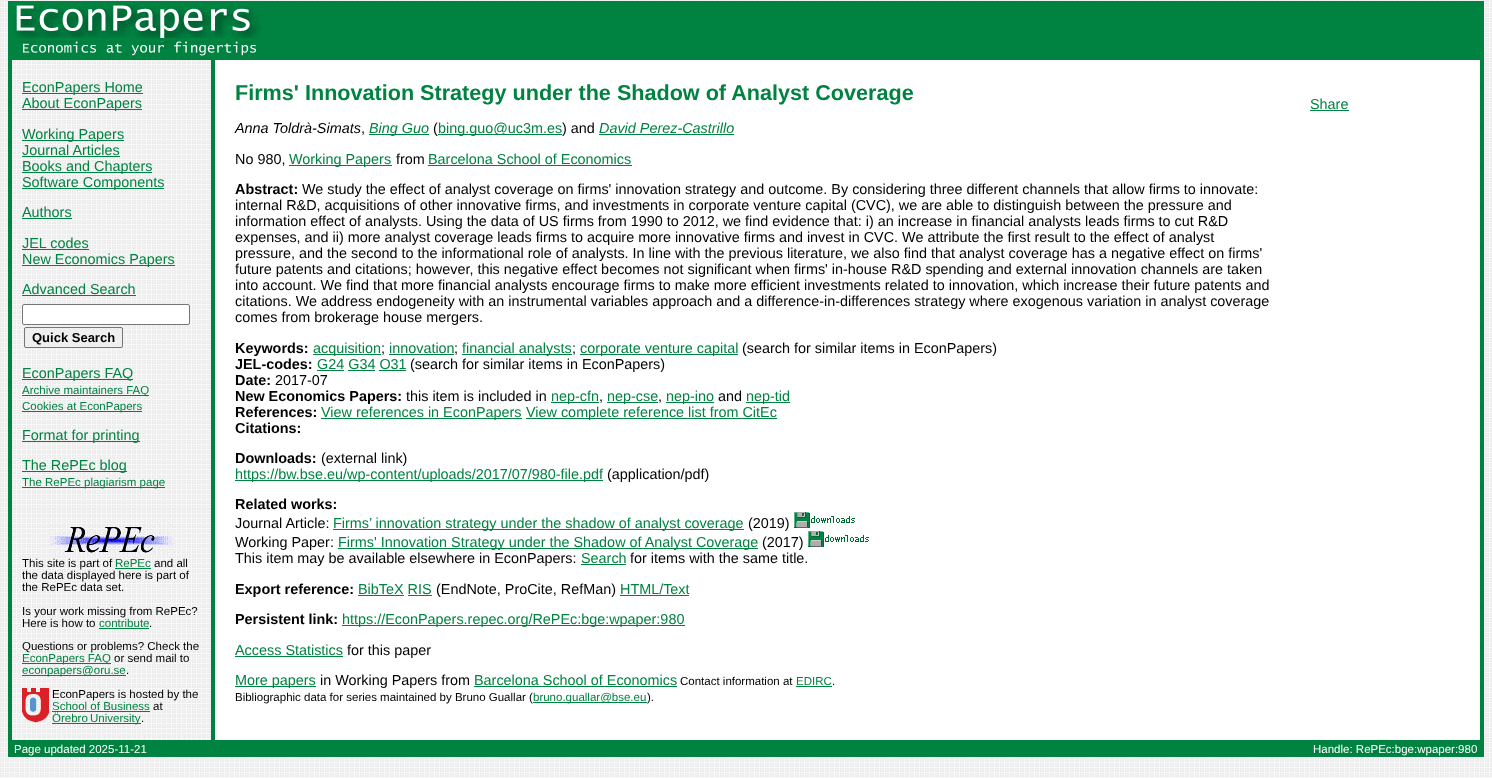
<!DOCTYPE html>
<meta charset="utf-8">
<style>body { margin: 0 } canvas { display: block }</style>
<canvas id="canvas" width="1492" height="778"></canvas>
<script type="module">
  const canvas = document.getElementById("canvas");
  const ctx = canvas.getContext("2d");
  ctx.miterLimit = 4;
  ctx.fontKerning = "normal";
  async function loadImage(src) {
    const img = new Image();
    img.src = src;
    await img.decode();
    return img;
  }

  ctx.fillStyle = "#ffffff";
  ctx.fillRect(0, 0, 1492, 778);
  ctx.drawImage(await loadImage("img1.png"), 0, 0, 1492, 778);
  ctx.fillStyle = "#008241";
  ctx.fillRect(8, 1, 4, 756);
  ctx.fillRect(12, 1, 1468, 40);
  ctx.drawImage(await loadImage("img2.png"), 13, 3, 249, 35);
  ctx.fillRect(1480, 1, 4, 756);
  ctx.fillRect(12, 41, 1468, 19);
  ctx.drawImage(await loadImage("img3.png"), 18, 41, 239, 15);
  ctx.drawImage(await loadImage("img4.png"), 12, 60, 199, 449);
  ctx.fillRect(22, 93, 121, 1);
  ctx.font = "14.4px Liberation Sans";
  ctx.fillText("EconPapers Home", 22, 92);
  ctx.fillRect(22, 109, 120, 1);
  ctx.fillText("About EconPapers", 22, 108);
  ctx.fillRect(22, 140, 102, 1);
  ctx.fillText("Working Papers", 22, 139);
  ctx.fillText("Journal Articles", 22, 155);
  ctx.fillRect(22, 156, 98, 1);
  ctx.fillRect(22, 172, 130, 1);
  ctx.fillText("Books and Chapters", 22, 171);
  ctx.fillRect(22, 188, 142, 1);
  ctx.fillText("Software Components", 22, 187);
  ctx.fillText("Authors", 22, 217);
  ctx.fillRect(22, 218, 50, 1);
  ctx.fillText("JEL codes", 22, 248);
  ctx.fillRect(22, 249, 67, 1);
  ctx.fillRect(22, 265, 153, 1);
  ctx.fillText("New Economics Papers", 22, 264);
  ctx.fillText("Advanced Search", 22, 294);
  ctx.fillRect(22, 295, 114, 1);
  ctx.fillStyle = "#ffffff";
  ctx.beginPath();
  ctx.roundRect(22.5, 304.5, 167, 20, 1.5);
  ctx.fill();
  ctx.strokeStyle = "#767676";
  ctx.stroke();
  ctx.fillStyle = "#efefef";
  ctx.beginPath();
  ctx.roundRect(24.5, 327.5, 98, 20, 1.5);
  ctx.fill();
  ctx.stroke();
  ctx.font = "bold 13px Liberation Sans";
  ctx.fillStyle = "#000000";
  ctx.fillText("Quick Search", 32, 342);
  ctx.fillStyle = "#008241";
  ctx.fillRect(22, 379, 111, 1);
  ctx.font = "14.4px Liberation Sans";
  ctx.fillText("EconPapers FAQ", 22, 378);
  ctx.fillRect(22, 395, 127, 1);
  ctx.font = "11.5px Liberation Sans";
  ctx.fillText("Archive maintainers FAQ", 22, 394);
  ctx.fillRect(22, 411, 120, 1);
  ctx.fillText("Cookies at EconPapers", 22, 410);
  ctx.fillRect(22, 441, 118, 1);
  ctx.font = "14.4px Liberation Sans";
  ctx.fillText("Format for printing", 22, 440);
  ctx.fillRect(22, 471, 105, 1);
  ctx.fillText("The RePEc blog", 22, 470);
  ctx.fillRect(22, 487, 143, 1);
  ctx.font = "11.5px Liberation Sans";
  ctx.fillText("The RePEc plagiarism page", 22, 486);
  ctx.fillRect(211, 60, 4, 680);
  ctx.fillStyle = "#ffffff";
  ctx.fillRect(215, 60, 1265, 680);
  ctx.font = "bold 21.6px Liberation Sans";
  ctx.fillStyle = "#008241";
  ctx.fillText("Firms' Innovation Strategy under the Shadow of Analyst Coverage", 235, 100);
  ctx.font = "italic 14.4px Liberation Sans";
  ctx.fillStyle = "#000000";
  ctx.fillText("Anna Toldrà-Simats", 235, 133);
  ctx.font = "14.4px Liberation Sans";
  ctx.fillText(",", 361, 133);
  ctx.fillStyle = "#008241";
  ctx.fillRect(369, 134, 60, 1);
  ctx.font = "italic 14.4px Liberation Sans";
  ctx.fillText("Bing Guo", 369, 133);
  ctx.font = "14.4px Liberation Sans";
  ctx.fillStyle = "#000000";
  ctx.fillText("(", 433, 133);
  ctx.fillStyle = "#008241";
  ctx.fillRect(438, 134, 124, 1);
  ctx.fillText("bing.guo@uc3m.es", 438, 133);
  ctx.fillStyle = "#000000";
  ctx.fillText(") and", 562, 133);
  ctx.font = "italic 14.4px Liberation Sans";
  ctx.fillStyle = "#008241";
  ctx.fillText("David Perez-Castrillo", 599, 133);
  ctx.fillRect(599, 134, 135, 1);
  ctx.font = "14.4px Liberation Sans";
  ctx.fillStyle = "#000000";
  ctx.fillText("No 980,", 235, 164);
  ctx.fillStyle = "#008241";
  ctx.fillRect(289, 165, 103, 1);
  ctx.fillText("Working Papers", 289, 164);
  ctx.fillStyle = "#000000";
  ctx.fillText("from", 396, 164);
  ctx.fillStyle = "#008241";
  ctx.fillText("Barcelona School of Economics", 428, 164);
  ctx.fillRect(428, 165, 204, 1);
  ctx.font = "bold 14.4px Liberation Sans";
  ctx.fillStyle = "#000000";
  ctx.fillText("Abstract:", 235, 194);
  ctx.font = "14.4px Liberation Sans";
  ctx.fillText("We study the effect of analyst coverage on firms' innovation strategy and outcome. By considering three different channels that allow firms to innovate:", 302, 194);
  ctx.fillText("internal R&D, acquisitions of other innovative firms, and investments in corporate venture capital (CVC), we are able to distinguish between the pressure and", 235, 210);
  ctx.fillText("information effect of analysts. Using the data of US firms from 1990 to 2012, we find evidence that: i) an increase in financial analysts leads firms to cut R&D", 235, 226);
  ctx.fillText("expenses, and ii) more analyst coverage leads firms to acquire more innovative firms and invest in CVC. We attribute the first result to the effect of analyst", 235, 242);
  ctx.fillText("pressure, and the second to the informational role of analysts. In line with the previous literature, we also find that analyst coverage has a negative effect on firms'", 235, 258);
  ctx.fillText("future patents and citations; however, this negative effect becomes not significant when firms' in-house R&D spending and external innovation channels are taken", 235, 274);
  ctx.fillText("into account. We find that more financial analysts encourage firms to make more efficient investments related to innovation, which increase their future patents and", 235, 290);
  ctx.fillText("citations. We address endogeneity with an instrumental variables approach and a difference-in-differences strategy where exogenous variation in analyst coverage", 235, 306);
  ctx.fillText("comes from brokerage house mergers.", 235, 322);
  ctx.font = "bold 14.4px Liberation Sans";
  ctx.fillText("Keywords:", 235, 353);
  ctx.fillStyle = "#008241";
  ctx.fillRect(313, 354, 68, 1);
  ctx.font = "14.4px Liberation Sans";
  ctx.fillText("acquisition", 313, 353);
  ctx.fillStyle = "#000000";
  ctx.fillText(";", 381, 353);
  ctx.fillStyle = "#008241";
  ctx.fillText("innovation", 389, 353);
  ctx.fillRect(389, 354, 65, 1);
  ctx.fillStyle = "#000000";
  ctx.fillText(";", 454, 353);
  ctx.fillStyle = "#008241";
  ctx.fillRect(462, 354, 110, 1);
  ctx.fillText("financial analysts", 462, 353);
  ctx.fillStyle = "#000000";
  ctx.fillText(";", 572, 353);
  ctx.fillStyle = "#008241";
  ctx.fillRect(580, 354, 158, 1);
  ctx.fillText("corporate venture capital", 580, 353);
  ctx.fillStyle = "#000000";
  ctx.fillText("(search for similar items in EconPapers)", 742, 353);
  ctx.font = "bold 14.4px Liberation Sans";
  ctx.fillText("JEL-codes:", 235, 369);
  ctx.font = "14.4px Liberation Sans";
  ctx.fillStyle = "#008241";
  ctx.fillText("G24 G34 O31", 317, 369);
  ctx.fillRect(317, 370, 27, 1);
  ctx.fillStyle = "#000000";
  ctx.fillText("(search for similar items in EconPapers)", 410, 369);
  ctx.fillStyle = "#008241";
  ctx.fillRect(348, 370, 27, 1);
  ctx.fillRect(379, 370, 27, 1);
  ctx.font = "bold 14.4px Liberation Sans";
  ctx.fillStyle = "#000000";
  ctx.fillText("Date:", 235, 385);
  ctx.font = "14.4px Liberation Sans";
  ctx.fillText("2017-07", 275, 385);
  ctx.font = "bold 14.4px Liberation Sans";
  ctx.fillText("New Economics Papers:", 235, 401);
  ctx.font = "14.4px Liberation Sans";
  ctx.fillText("this item is included in", 406, 401);
  ctx.fillStyle = "#008241";
  ctx.fillRect(551, 402, 48, 1);
  ctx.fillText("nep-cfn", 551, 401);
  ctx.fillStyle = "#000000";
  ctx.fillText(",", 599, 401);
  ctx.fillStyle = "#008241";
  ctx.fillRect(607, 402, 51, 1);
  ctx.fillText("nep-cse", 607, 401);
  ctx.fillStyle = "#000000";
  ctx.fillText(",", 658, 401);
  ctx.fillStyle = "#008241";
  ctx.fillRect(666, 402, 48, 1);
  ctx.fillText("nep-ino", 666, 401);
  ctx.fillStyle = "#000000";
  ctx.fillText("and", 718, 401);
  ctx.fillStyle = "#008241";
  ctx.fillRect(746, 402, 44, 1);
  ctx.fillText("nep-tid", 746, 401);
  ctx.font = "bold 14.4px Liberation Sans";
  ctx.fillStyle = "#000000";
  ctx.fillText("References:", 235, 417);
  ctx.fillStyle = "#008241";
  ctx.fillRect(321, 418, 201, 1);
  ctx.font = "14.4px Liberation Sans";
  ctx.fillText("View references in EconPapers", 321, 417);
  ctx.fillRect(526, 418, 251, 1);
  ctx.fillText("View complete reference list from CitEc", 526, 417);
  ctx.font = "bold 14.4px Liberation Sans";
  ctx.fillStyle = "#000000";
  ctx.fillText("Citations:", 235, 433);
  ctx.fillText("Downloads:", 235, 463);
  ctx.font = "14.4px Liberation Sans";
  ctx.fillText("(external link)", 321, 463);
  ctx.fillStyle = "#008241";
  ctx.fillRect(235, 480, 368, 1);
  ctx.fillText("https://bw.bse.eu/wp-content/uploads/2017/07/980-file.pdf", 235, 479);
  ctx.fillStyle = "#000000";
  ctx.fillText("(application/pdf)", 607, 479);
  ctx.font = "bold 14.4px Liberation Sans";
  ctx.fillText("Related works:", 235, 509);
  ctx.font = "14.4px Liberation Sans";
  ctx.fillText("Journal Article:", 235, 528);
  ctx.fillStyle = "#008241";
  ctx.fillRect(333, 529, 411, 1);
  ctx.fillText("Firms’ innovation strategy under the shadow of analyst coverage", 333, 528);
  ctx.fillStyle = "#000000";
  ctx.fillText("(2019)", 748, 528);
  ctx.drawImage(await loadImage("img5.png"), 794, 512, 61, 16);
  ctx.fillText("Working Paper:", 235, 547);
  ctx.fillStyle = "#008241";
  ctx.fillRect(338, 548, 420, 1);
  ctx.fillText("Firms' Innovation Strategy under the Shadow of Analyst Coverage", 338, 547);
  ctx.fillStyle = "#000000";
  ctx.fillText("(2017)", 762, 547);
  ctx.drawImage(await loadImage("img5.png"), 808, 531, 61, 16);
  ctx.fillText("This item may be available elsewhere in EconPapers:", 235, 563);
  ctx.fillStyle = "#008241";
  ctx.fillText("Search", 581, 563);
  ctx.fillRect(581, 564, 45, 1);
  ctx.fillStyle = "#000000";
  ctx.fillText("for items with the same title.", 630, 563);
  ctx.font = "bold 14.4px Liberation Sans";
  ctx.fillText("Export reference:", 235, 594);
  ctx.font = "14.4px Liberation Sans";
  ctx.fillStyle = "#008241";
  ctx.fillText("BibTeX RIS", 358, 594);
  ctx.fillRect(358, 595, 46, 1);
  ctx.fillStyle = "#000000";
  ctx.fillText("(EndNote, ProCite, RefMan)", 436, 594);
  ctx.fillStyle = "#008241";
  ctx.fillText("HTML/Text", 620, 594);
  ctx.fillRect(620, 595, 69, 1);
  ctx.fillRect(408, 595, 24, 1);
  ctx.font = "bold 14.4px Liberation Sans";
  ctx.fillStyle = "#000000";
  ctx.fillText("Persistent link:", 235, 624);
  ctx.fillStyle = "#008241";
  ctx.fillRect(342, 625, 343, 1);
  ctx.font = "14.4px Liberation Sans";
  ctx.fillText("https://EconPapers.repec.org/RePEc:bge:wpaper:980", 342, 624);
  ctx.fillText("Access Statistics", 235, 655);
  ctx.fillRect(235, 656, 108, 1);
  ctx.fillStyle = "#000000";
  ctx.fillText("for this paper", 347, 655);
  ctx.fillStyle = "#008241";
  ctx.fillRect(235, 686, 81, 1);
  ctx.fillText("More papers", 235, 685);
  ctx.fillStyle = "#000000";
  ctx.fillText("in Working Papers from", 320, 685);
  ctx.fillStyle = "#008241";
  ctx.fillText("Barcelona School of Economics", 474, 685);
  ctx.fillRect(474, 686, 203, 1);
  ctx.font = "11.5px Liberation Sans";
  ctx.fillStyle = "#000000";
  ctx.fillText("Contact information at", 680, 685);
  ctx.fillStyle = "#008241";
  ctx.fillText("EDIRC", 796, 685);
  ctx.fillStyle = "#000000";
  ctx.fillText(".", 832, 685);
  ctx.fillStyle = "#008241";
  ctx.fillRect(796, 686, 36, 1);
  ctx.fillStyle = "#000000";
  ctx.fillText("Bibliographic data for series maintained by Bruno Guallar (", 235, 701);
  ctx.fillStyle = "#008241";
  ctx.fillRect(533, 702, 114, 1);
  ctx.fillText("bruno.guallar@bse.eu", 533, 701);
  ctx.fillStyle = "#000000";
  ctx.fillText(").", 647, 701);
  ctx.font = "14.4px Liberation Sans";
  ctx.fillStyle = "#008241";
  ctx.fillText("Share", 1310, 109);
  ctx.fillRect(1310, 110, 39, 1);
  ctx.drawImage(await loadImage("img6.png"), 12, 509, 199, 231);
  ctx.drawImage(await loadImage("img7.png"), 48, 525, 127, 29);
  ctx.font = "11.5px Liberation Sans";
  ctx.fillStyle = "#000000";
  ctx.fillText("This site is part of", 22, 567);
  ctx.fillStyle = "#008241";
  ctx.fillText("RePEc", 115, 567);
  ctx.fillRect(115, 568, 36, 1);
  ctx.fillStyle = "#000000";
  ctx.fillText("and all", 154, 567);
  ctx.fillText("the data displayed here is part of", 22, 579);
  ctx.fillText("the RePEc data set.", 22, 591);
  ctx.fillText("Is your work missing from RePEc?", 22, 615);
  ctx.fillText("Here is how to", 22, 627);
  ctx.fillStyle = "#008241";
  ctx.fillText("contribute", 99, 627);
  ctx.fillRect(99, 628, 50, 1);
  ctx.fillStyle = "#000000";
  ctx.fillText(".", 149, 627);
  ctx.fillText("Questions or problems? Check the", 22, 650);
  ctx.fillStyle = "#008241";
  ctx.fillRect(22, 663, 89, 1);
  ctx.fillText("EconPapers FAQ", 22, 662);
  ctx.fillStyle = "#000000";
  ctx.fillText("or send mail to", 114, 662);
  ctx.fillStyle = "#008241";
  ctx.fillRect(22, 675, 104, 1);
  ctx.fillText("econpapers@oru.se", 22, 674);
  ctx.fillStyle = "#000000";
  ctx.fillText(".", 126, 674);
  ctx.drawImage(await loadImage("img8.png"), 22, 688, 27, 35);
  ctx.fillText("EconPapers is hosted by the", 52, 698);
  ctx.fillStyle = "#008241";
  ctx.fillText("School of Business", 52, 710);
  ctx.fillRect(52, 711, 98, 1);
  ctx.fillStyle = "#000000";
  ctx.fillText("at", 153, 710);
  ctx.fillStyle = "#008241";
  ctx.fillRect(52, 723, 89, 1);
  ctx.wordSpacing = "-1px";
  ctx.fillText("Örebro University", 52, 722);
  ctx.wordSpacing = "0px";
  ctx.fillStyle = "#000000";
  ctx.fillText(".", 141, 722);
  ctx.fillStyle = "#008241";
  ctx.fillRect(12, 740, 1468, 17);
  ctx.fillStyle = "#ffffff";
  ctx.fillText("Page updated 2025-11-21", 14, 753);
  ctx.fillText("Handle: RePEc:bge:wpaper:980", 1313, 753);
</script>
